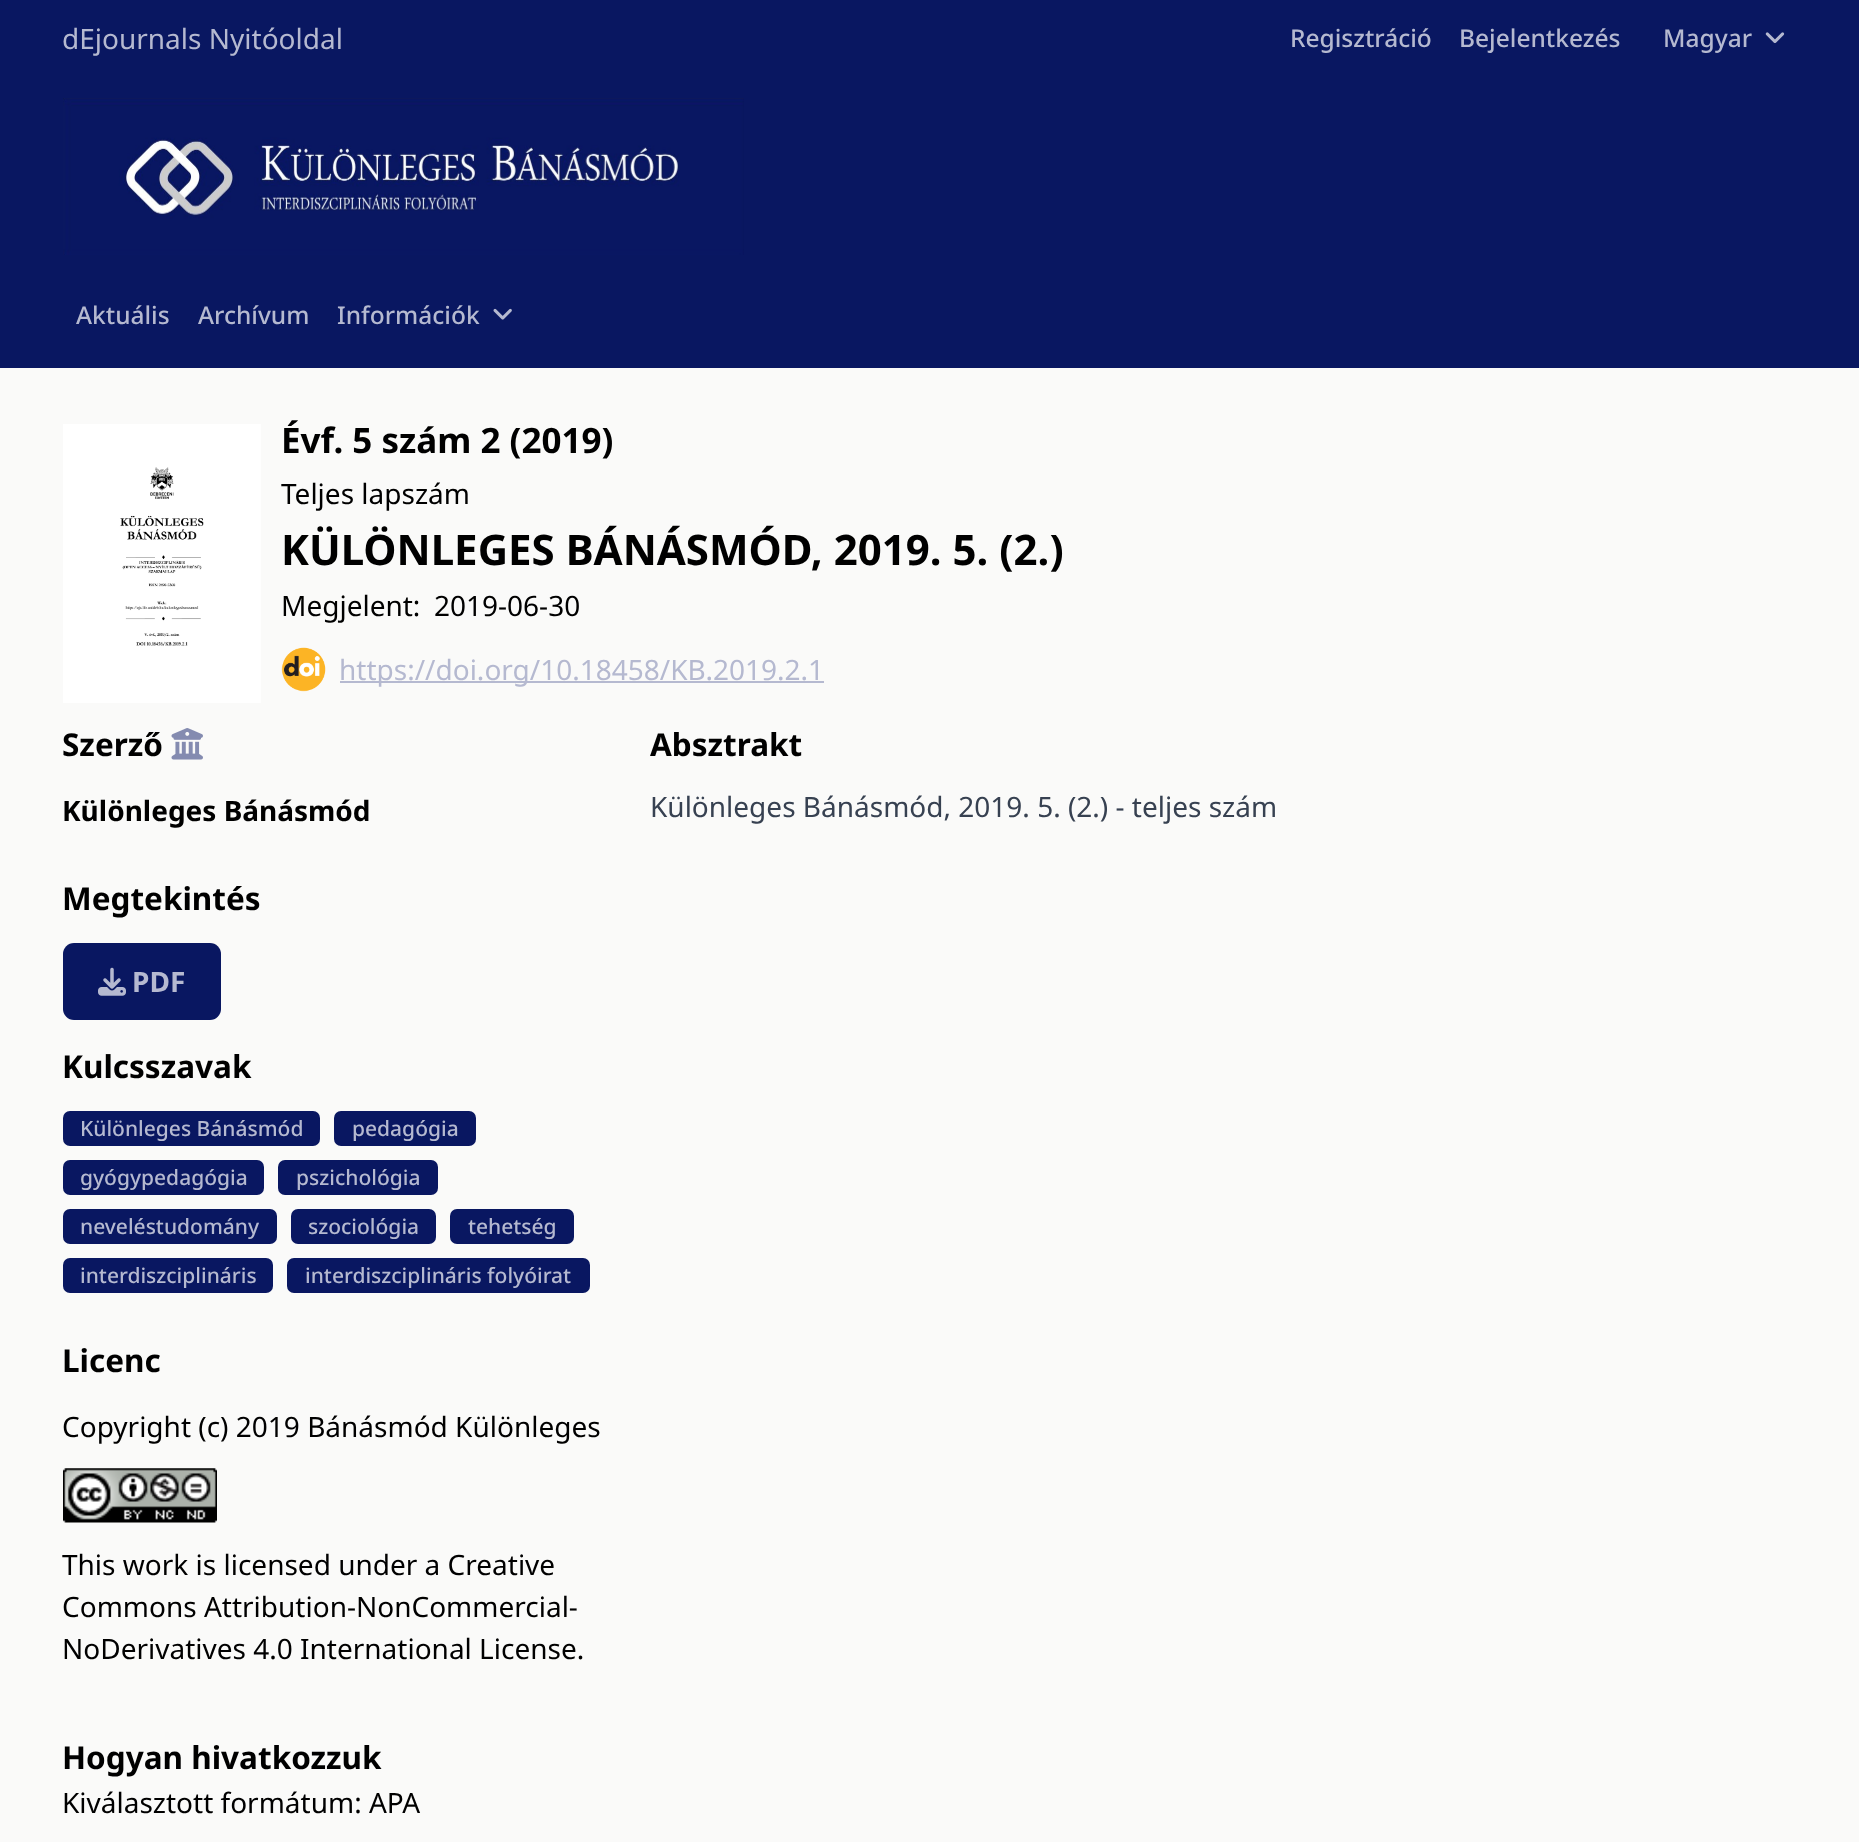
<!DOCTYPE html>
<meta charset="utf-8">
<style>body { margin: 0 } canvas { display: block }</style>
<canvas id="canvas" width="1859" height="1842"></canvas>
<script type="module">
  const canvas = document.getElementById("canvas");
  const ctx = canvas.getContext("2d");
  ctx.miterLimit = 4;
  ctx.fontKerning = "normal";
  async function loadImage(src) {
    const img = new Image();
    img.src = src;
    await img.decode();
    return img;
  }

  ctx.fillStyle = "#fafaf9";
  ctx.fillRect(0, 0, 1859, 1842);
  ctx.fillStyle = "#091761";
  ctx.fillRect(0, 0, 1859, 368);
  ctx.font = "28px Noto Sans";
  ctx.fillStyle = "#b5b9d0";
  ctx.fillText("dEjournals Nyitóoldal", 62, 49);
  ctx.font = "500 24.5px Noto Sans";
  ctx.fillText("Regisztráció", 1290, 47);
  ctx.fillText("Bejelentkezés", 1459, 47);
  ctx.fillText("Magyar", 1663, 47);
  ctx.drawImage(await loadImage("img1.png"), 1765, 32, 20, 12);
  ctx.drawImage(await loadImage("img2.png"), 63, 98, 681, 157);
  ctx.fillText("Aktuális", 76, 324);
  ctx.fillText("Archívum", 198, 324);
  ctx.fillText("Információk", 337, 324);
  ctx.drawImage(await loadImage("img3.png"), 493, 308, 19, 12);
  ctx.drawImage(await loadImage("img4.png"), 63, 424, 198, 279);
  ctx.font = "bold 35px Noto Sans";
  ctx.fillStyle = "#000000";
  ctx.fillText("Évf. 5 szám 2 (2019)", 281, 453);
  ctx.font = "28px Noto Sans";
  ctx.fillText("Teljes lapszám", 281, 504);
  ctx.font = "bold 42px Noto Sans";
  ctx.fillText("KÜLÖNLEGES BÁNÁSMÓD, 2019. 5. (2.)", 281, 565);
  ctx.font = "28px Noto Sans";
  ctx.fillText("Megjelent:", 281, 616);
  ctx.fillText("2019-06-30", 434, 616);
  ctx.drawImage(await loadImage("img5.png"), 281, 647, 45, 45);
  ctx.fillStyle = "#b5b9d0";
  ctx.fillRect(340, 681, 484, 2);
  ctx.fillText("https://doi.org/10.18458/KB.2019.2.1", 339, 680);
  ctx.font = "bold 31.5px Noto Sans";
  ctx.fillStyle = "#000000";
  ctx.fillText("Szerző", 62, 756);
  ctx.drawImage(await loadImage("img6.png"), 171, 728, 32, 32);
  ctx.font = "bold 28px Noto Sans";
  ctx.fillText("Különleges Bánásmód", 62, 821);
  ctx.font = "bold 31.5px Noto Sans";
  ctx.fillText("Megtekintés", 62, 910);
  ctx.fillStyle = "#091761";
  ctx.beginPath();
  ctx.roundRect(63, 943, 158, 77, 11);
  ctx.fill();
  ctx.drawImage(await loadImage("img7.png"), 98, 967, 28, 29);
  ctx.font = "bold 28px Noto Sans";
  ctx.fillStyle = "#b5b9d0";
  ctx.fillText("PDF", 132, 992);
  ctx.font = "bold 31.5px Noto Sans";
  ctx.fillStyle = "#000000";
  ctx.fillText("Kulcsszavak", 62, 1078);
  ctx.fillStyle = "#091761";
  ctx.beginPath();
  ctx.roundRect(63, 1111, 257, 35, 7);
  ctx.fill();
  ctx.font = "500 21px Noto Sans";
  ctx.fillStyle = "#b5b9d0";
  ctx.fillText("Különleges Bánásmód", 80, 1136);
  ctx.fillStyle = "#091761";
  ctx.beginPath();
  ctx.roundRect(334, 1111, 142, 35, 7);
  ctx.fill();
  ctx.fillStyle = "#b5b9d0";
  ctx.fillText("pedagógia", 352, 1136);
  ctx.fillStyle = "#091761";
  ctx.beginPath();
  ctx.roundRect(63, 1160, 201, 35, 7);
  ctx.fill();
  ctx.fillStyle = "#b5b9d0";
  ctx.fillText("gyógypedagógia", 80, 1185);
  ctx.fillStyle = "#091761";
  ctx.beginPath();
  ctx.roundRect(278, 1160, 160, 35, 7);
  ctx.fill();
  ctx.fillStyle = "#b5b9d0";
  ctx.fillText("pszichológia", 296, 1185);
  ctx.fillStyle = "#091761";
  ctx.beginPath();
  ctx.roundRect(63, 1209, 214, 35, 7);
  ctx.fill();
  ctx.fillStyle = "#b5b9d0";
  ctx.fillText("neveléstudomány", 80, 1234);
  ctx.fillStyle = "#091761";
  ctx.beginPath();
  ctx.roundRect(291, 1209, 145, 35, 7);
  ctx.fill();
  ctx.fillStyle = "#b5b9d0";
  ctx.fillText("szociológia", 308, 1234);
  ctx.fillStyle = "#091761";
  ctx.beginPath();
  ctx.roundRect(450, 1209, 124, 35, 7);
  ctx.fill();
  ctx.fillStyle = "#b5b9d0";
  ctx.fillText("tehetség", 468, 1234);
  ctx.fillStyle = "#091761";
  ctx.beginPath();
  ctx.roundRect(63, 1258, 210, 35, 7);
  ctx.fill();
  ctx.fillStyle = "#b5b9d0";
  ctx.fillText("interdiszciplináris", 80, 1283);
  ctx.fillStyle = "#091761";
  ctx.beginPath();
  ctx.roundRect(287, 1258, 303, 35, 7);
  ctx.fill();
  ctx.fillStyle = "#b5b9d0";
  ctx.fillText("interdiszciplináris folyóirat", 305, 1283);
  ctx.font = "bold 31.5px Noto Sans";
  ctx.fillStyle = "#000000";
  ctx.fillText("Licenc", 62, 1372);
  ctx.font = "28px Noto Sans";
  ctx.fillText("Copyright (c) 2019 Bánásmód Különleges", 62, 1437);
  ctx.drawImage(await loadImage("img8.png"), 63, 1468, 154, 55);
  ctx.fillText("This work is licensed under a Creative", 62, 1575);
  ctx.fillText("Commons Attribution-NonCommercial-", 62, 1617);
  ctx.fillText("NoDerivatives 4.0 International License.", 62, 1659);
  ctx.font = "bold 31.5px Noto Sans";
  ctx.fillText("Hogyan hivatkozzuk", 62, 1769);
  ctx.font = "28px Noto Sans";
  ctx.fillText("Kiválasztott formátum: APA", 62, 1813);
  ctx.font = "bold 31.5px Noto Sans";
  ctx.fillText("Absztrakt", 650, 756);
  ctx.font = "28px Noto Sans";
  ctx.fillStyle = "#374151";
  ctx.fillText("Különleges Bánásmód, 2019. 5. (2.) - teljes szám", 650, 817);
</script>
